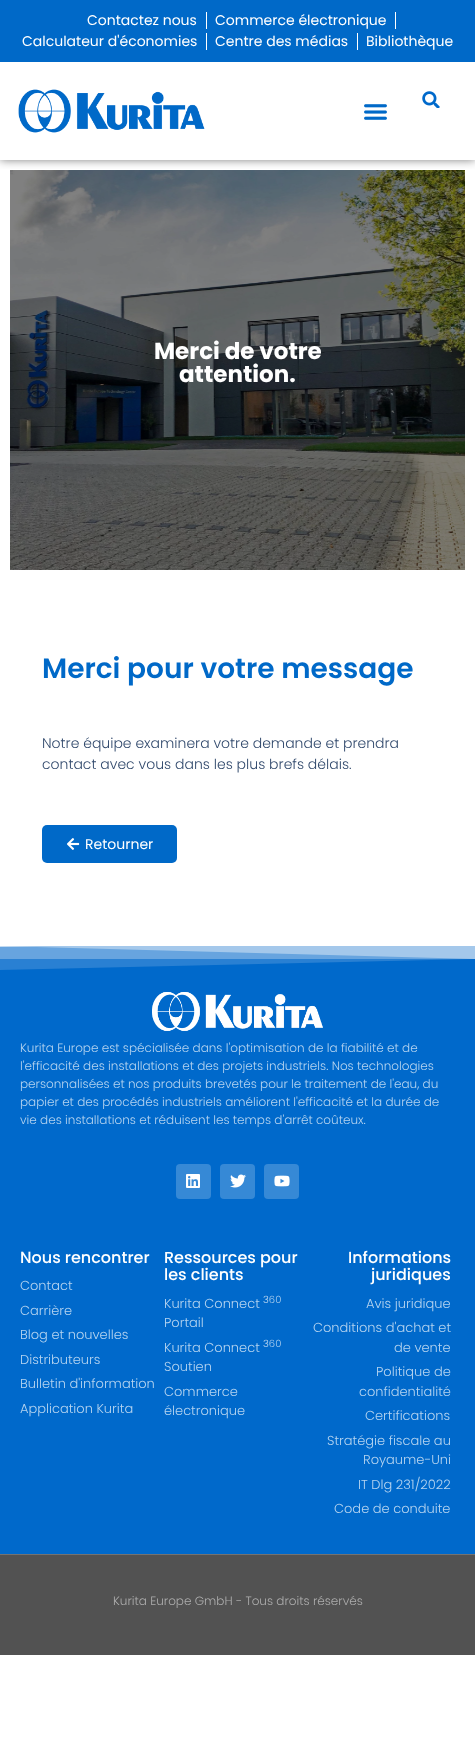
<!DOCTYPE html>
<meta charset="utf-8">
<style>body { margin: 0 } canvas { display: block }</style>
<canvas id="canvas" width="475" height="1754"></canvas>
<script type="module">
  const canvas = document.getElementById("canvas");
  const ctx = canvas.getContext("2d");
  ctx.miterLimit = 4;
  ctx.fontKerning = "normal";
  async function loadImage(src) {
    const img = new Image();
    img.src = src;
    await img.decode();
    return img;
  }

  ctx.fillStyle = "#ffffff";
  ctx.fillRect(0, 0, 475, 1754);
  ctx.fillStyle = "#d2e4f5";
  ctx.fillRect(0, 946, 37, 1);
  ctx.drawImage(await loadImage("img4.png"), 10, 170, 455, 400);
  ctx.save();
  ctx.beginPath();
  ctx.rect(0, 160, 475, 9);
  ctx.clip();
  ctx.fillStyle = "rgba(0, 0, 0, 0.5)";
  ctx.filter = "blur(5px)";
  ctx.beginPath();
  ctx.rect(0, 62, 475, 98);
  ctx.fill();
  ctx.filter = "none";
  ctx.restore();
  ctx.fillStyle = "#0069c8";
  ctx.fillRect(0, 0, 475, 62);
  ctx.font = "14px Poppins";
  ctx.fillStyle = "#ffffff";
  ctx.fillText("Contactez nous", 87, 25);
  ctx.fillRect(206, 12, 1, 17);
  ctx.fillText("Commerce électronique", 215, 25);
  ctx.fillRect(395, 12, 1, 17);
  ctx.fillText("Calculateur d'économies", 22, 46);
  ctx.fillRect(206, 33, 1, 17);
  ctx.fillText("Centre des médias", 215, 46);
  ctx.fillRect(357, 33, 1, 17);
  ctx.fillText("Bibliothèque", 366, 46);
  ctx.drawImage(await loadImage("img1.png"), 18, 89, 187, 44);
  ctx.drawImage(await loadImage("img2.png"), 422, 91, 18, 17);
  ctx.drawImage(await loadImage("img3.png"), 364, 104, 23, 16);
  ctx.font = "bold 23px Poppins";
  ctx.fillText("Merci de votre", 154, 359);
  ctx.fillText("attention.", 179, 382);
  ctx.font = "600 28px Poppins";
  ctx.fillStyle = "#0069c8";
  ctx.fillText("Merci pour votre message", 42, 678);
  ctx.font = "300 14px Poppins";
  ctx.fillStyle = "#324a6d";
  ctx.fillText("Notre équipe examinera votre demande et prendra", 42, 748);
  ctx.fillText("contact avec vous dans les plus brefs délais.", 42, 769);
  ctx.fillStyle = "#0069c8";
  ctx.beginPath();
  ctx.roundRect(42, 825, 135, 38, 5);
  ctx.fill();
  ctx.drawImage(await loadImage("img5.png"), 67, 838, 13, 12);
  ctx.font = "14px Poppins";
  ctx.fillStyle = "#ffffff";
  ctx.fillText("Retourner", 85, 849);
  ctx.fillStyle = "#0069cb";
  ctx.fillRect(0, 959, 475, 595);
  ctx.fillStyle = "#5399db";
  ctx.fillRect(0, 947, 475, 12);
  ctx.fillStyle = "#a5c9eb";
  ctx.beginPath();
  ctx.moveTo(0, 946);
  ctx.lineTo(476, 946);
  ctx.lineTo(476, 959);
  ctx.closePath();
  ctx.fill();
  ctx.fillStyle = "rgba(165, 201, 235, 0.25)";
  ctx.beginPath();
  ctx.moveTo(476, 946);
  ctx.lineTo(0, 946);
  ctx.lineTo(0, 970);
  ctx.lineTo(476, 959);
  ctx.closePath();
  ctx.fill();
  ctx.drawImage(await loadImage("img6.png"), 152, 992, 171, 39);
  ctx.font = "300 12px Poppins";
  ctx.fillStyle = "#b5d4f0";
  ctx.fillText("Kurita Europe est spécialisée dans l'optimisation de la fiabilité et de", 20, 1052);
  ctx.fillText("l'efficacité des installations et des projets industriels. Nos technologies", 20, 1070);
  ctx.fillText("personnalisées et nos produits brevetés pour le traitement de l'eau, du", 20, 1088);
  ctx.fillText("papier et des procédés industriels améliorent l'efficacité et la durée de", 20, 1106);
  ctx.fillText("vie des installations et réduisent les temps d'arrêt coûteux.", 20, 1124);
  ctx.fillStyle = "#3689d6";
  ctx.beginPath();
  ctx.roundRect(176, 1164, 35, 35, 4);
  ctx.fill();
  ctx.drawImage(await loadImage("img7.png"), 186, 1174, 14, 14);
  ctx.beginPath();
  ctx.roundRect(220, 1164, 35, 35, 4);
  ctx.fill();
  ctx.drawImage(await loadImage("img8.png"), 230, 1174, 16, 14);
  ctx.beginPath();
  ctx.roundRect(264, 1164, 35, 35, 4);
  ctx.fill();
  ctx.drawImage(await loadImage("img9.png"), 274, 1175, 16, 12);
  ctx.font = "500 16px Poppins";
  ctx.fillStyle = "#ffffff";
  ctx.fillText("Nous rencontrer", 20, 1263);
  ctx.font = "300 13px Poppins";
  ctx.fillStyle = "#b5d4f0";
  ctx.fillText("Contact", 20, 1290);
  ctx.fillText("Carrière", 20, 1315);
  ctx.fillText("Blog et nouvelles", 20, 1339);
  ctx.fillText("Distributeurs", 20, 1364);
  ctx.fillText("Bulletin d'information", 20, 1388);
  ctx.fillText("Application Kurita", 20, 1413);
  ctx.font = "500 16px Poppins";
  ctx.fillStyle = "#ffffff";
  ctx.fillText("Ressources pour", 164, 1263);
  ctx.fillText("les clients", 164, 1280);
  ctx.font = "300 13px Poppins";
  ctx.fillStyle = "#b5d4f0";
  ctx.fillText("Kurita Connect", 164, 1308);
  ctx.font = "300 10px Poppins";
  ctx.fillText("360", 263, 1303);
  ctx.font = "300 13px Poppins";
  ctx.fillText("Portail", 164, 1327);
  ctx.fillText("Kurita Connect", 164, 1352);
  ctx.font = "300 10px Poppins";
  ctx.fillText("360", 263, 1347);
  ctx.font = "300 13px Poppins";
  ctx.fillText("Soutien", 164, 1371);
  ctx.fillText("Commerce", 164, 1396);
  ctx.fillText("électronique", 164, 1415);
  ctx.font = "500 16px Poppins";
  ctx.fillStyle = "#ffffff";
  ctx.fillText("Informations", 348, 1263);
  ctx.fillText("juridiques", 371, 1280);
  ctx.font = "300 13px Poppins";
  ctx.fillStyle = "#b5d4f0";
  ctx.fillText("Avis juridique", 366, 1308);
  ctx.fillText("Conditions d'achat et", 313, 1332);
  ctx.fillText("de vente", 394, 1352);
  ctx.fillText("Politique de", 376, 1376);
  ctx.fillText("confidentialité", 359, 1396);
  ctx.fillText("Certifications", 365, 1420);
  ctx.fillText("Stratégie fiscale au", 327, 1445);
  ctx.fillText("Royaume-Uni", 363, 1464);
  ctx.fillText("IT Dlg 231/2022", 358, 1489);
  ctx.fillText("Code de conduite", 334, 1513);
  ctx.fillStyle = "#525252";
  ctx.fillRect(0, 1555, 475, 100);
  ctx.fillStyle = "#737373";
  ctx.fillRect(0, 1554, 475, 1);
  ctx.font = "300 12px Poppins";
  ctx.fillStyle = "#adadad";
  ctx.fillText("Kurita Europe GmbH - Tous droits réservés", 113, 1605);
</script>
